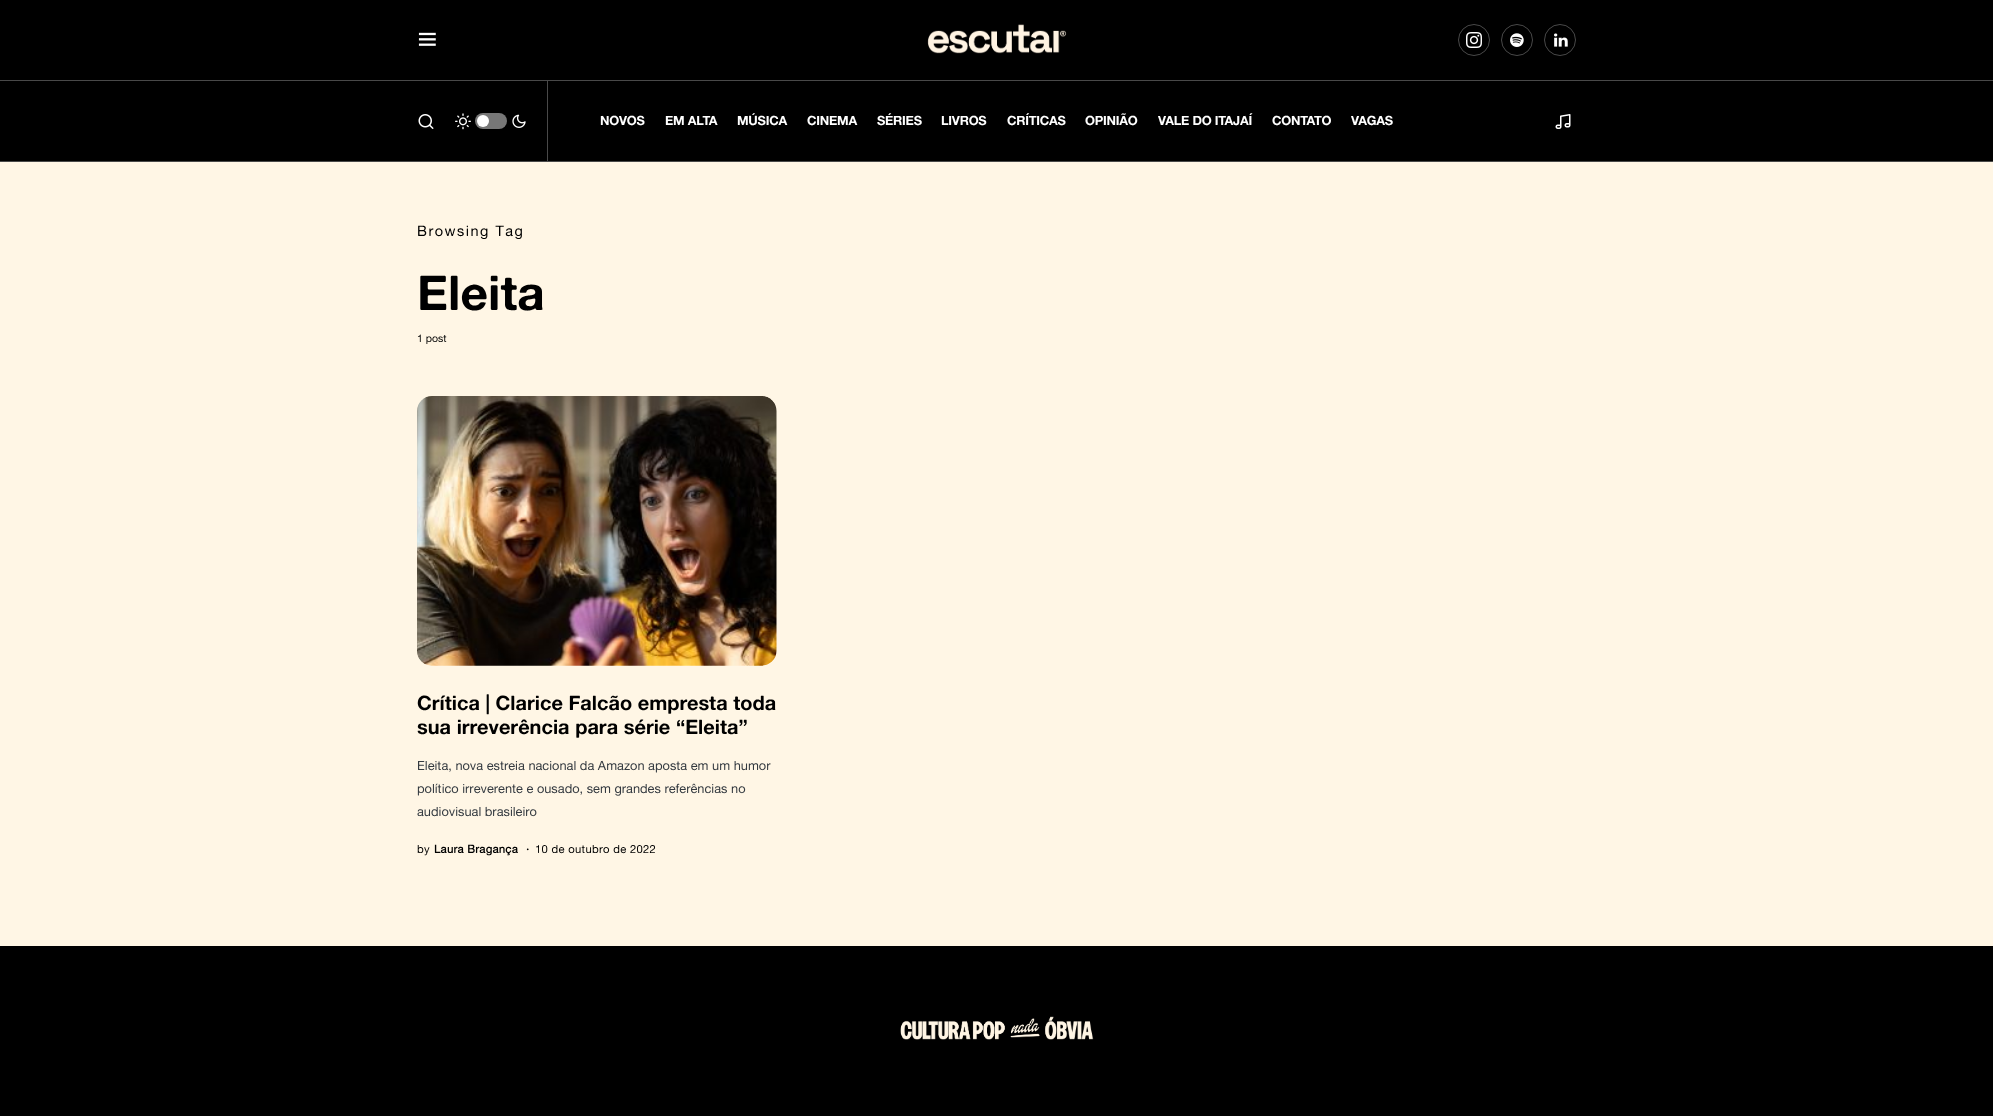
<!DOCTYPE html>
<meta charset="utf-8">
<style>body { margin: 0 } canvas { display: block }</style>
<canvas id="canvas" width="1993" height="1116"></canvas>
<script type="module">
  const canvas = document.getElementById("canvas");
  const ctx = canvas.getContext("2d");
  ctx.miterLimit = 4;
  ctx.fontKerning = "normal";
  async function loadImage(src) {
    const img = new Image();
    img.src = src;
    await img.decode();
    return img;
  }

  ctx.fillStyle = "#fff6e5";
  ctx.fillRect(0, 0, 1993, 1116);
  ctx.fillStyle = "#000000";
  ctx.fillRect(0, 0, 1993, 80);
  ctx.fillStyle = "#494949";
  ctx.fillRect(0, 80, 1993, 1);
  ctx.drawImage(await loadImage("img1.png"), 418, 32, 18, 14);
  ctx.drawImage(await loadImage("img2.png"), 927, 24, 140, 30);
  ctx.beginPath();
  ctx.arc(1474, 40, 15.5, 0, Math.PI * 2);
  ctx.strokeStyle = "#494949";
  ctx.stroke();
  ctx.drawImage(await loadImage("img3.png"), 1466, 32, 16, 16);
  ctx.beginPath();
  ctx.arc(1517, 40, 15.5, 0, Math.PI * 2);
  ctx.stroke();
  ctx.drawImage(await loadImage("img4.png"), 1510, 33, 14, 14);
  ctx.beginPath();
  ctx.arc(1560, 40, 15.5, 0, Math.PI * 2);
  ctx.stroke();
  ctx.drawImage(await loadImage("img5.png"), 1554, 33, 14, 14);
  ctx.fillStyle = "#000000";
  ctx.fillRect(0, 81, 1993, 80);
  ctx.fillStyle = "#494949";
  ctx.fillRect(0, 161, 1993, 1);
  ctx.drawImage(await loadImage("img6.png"), 418, 114, 16, 15);
  ctx.drawImage(await loadImage("img7.png"), 455, 113, 16, 17);
  ctx.fillStyle = "#777777";
  ctx.beginPath();
  ctx.roundRect(475, 113, 32, 16, 8);
  ctx.fill();
  ctx.fillStyle = "#ffffff";
  ctx.beginPath();
  ctx.arc(483, 121, 6, 0, Math.PI * 2);
  ctx.fill();
  ctx.drawImage(await loadImage("img8.png"), 512, 114, 14, 14);
  ctx.fillStyle = "#494949";
  ctx.fillRect(547, 81, 1, 80);
  ctx.letterSpacing = "-0.25px";
  ctx.font = "bold 12.8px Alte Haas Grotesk";
  ctx.fillStyle = "#ffffff";
  ctx.fillText("NOVOS", 600, 125);
  ctx.fillText("EM ALTA", 665, 125);
  ctx.fillText("MÚSICA", 737, 125);
  ctx.fillText("CINEMA", 807, 125);
  ctx.fillText("SÉRIES", 877, 125);
  ctx.fillText("LIVROS", 941, 125);
  ctx.fillText("CRÍTICAS", 1007, 125);
  ctx.fillText("OPINIÃO", 1085, 125);
  ctx.fillText("VALE DO ITAJAÍ", 1158, 125);
  ctx.fillText("CONTATO", 1272, 125);
  ctx.fillText("VAGAS", 1351, 125);
  ctx.drawImage(await loadImage("img9.png"), 1555, 114, 16, 15);
  ctx.letterSpacing = "1.5px";
  ctx.font = "14.5px Alte Haas Grotesk";
  ctx.fillStyle = "#000000";
  ctx.fillText("Browsing Tag", 417, 236);
  ctx.letterSpacing = "0px";
  ctx.font = "bold 48px Alte Haas Grotesk";
  ctx.fillText("Eleita", 417, 310);
  ctx.font = "10.5px Alte Haas Grotesk";
  ctx.fillText("1 post", 417, 342);
  ctx.drawImage(await loadImage("img10.png"), 417, 396, 360, 270);
  ctx.font = "bold 20px Alte Haas Grotesk";
  ctx.fillText("Crítica | Clarice Falcão empresta toda", 417, 710);
  ctx.fillText("sua irreverência para série “Eleita”", 417, 734);
  ctx.font = "12.8px Alte Haas Grotesk";
  ctx.fillStyle = "#343a40";
  ctx.fillText("Eleita, nova estreia nacional da Amazon aposta em um humor", 417, 770);
  ctx.fillText("político irreverente e ousado, sem grandes referências no", 417, 793);
  ctx.fillText("audiovisual brasileiro", 417, 816);
  ctx.letterSpacing = "0.3px";
  ctx.font = "11.25px Alte Haas Grotesk";
  ctx.fillStyle = "#000000";
  ctx.fillText("by", 417, 853);
  ctx.font = "bold 11.25px 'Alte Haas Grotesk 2'";
  ctx.fillText("Laura Bragança", 434, 853);
  ctx.fillText("·", 526, 853);
  ctx.font = "11.25px Alte Haas Grotesk";
  ctx.fillText("10 de outubro de 2022", 535, 853);
  ctx.fillRect(0, 946, 1993, 170);
  ctx.drawImage(await loadImage("img11.png"), 900, 1016, 194, 24);
</script>
